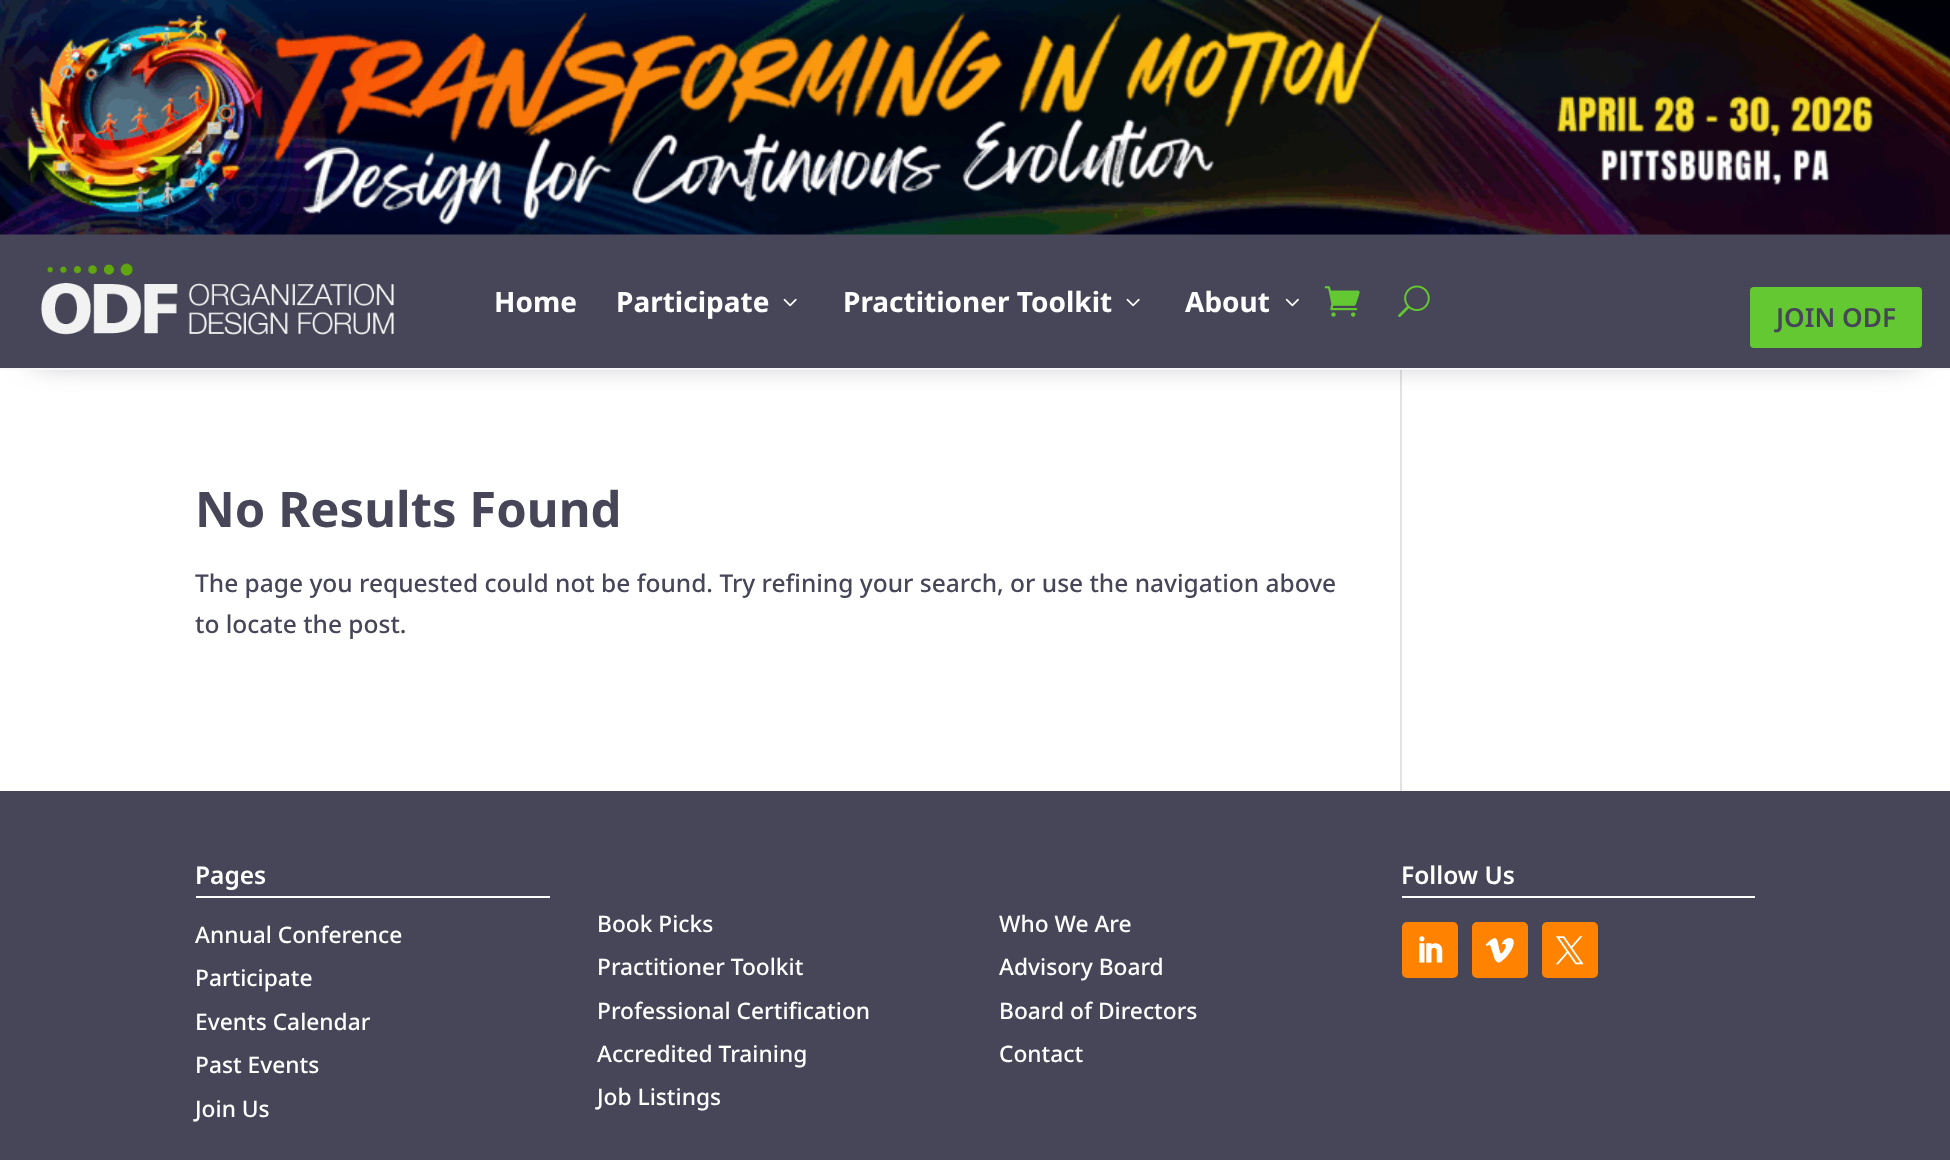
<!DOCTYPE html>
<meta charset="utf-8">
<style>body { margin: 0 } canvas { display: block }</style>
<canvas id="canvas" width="1950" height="1160"></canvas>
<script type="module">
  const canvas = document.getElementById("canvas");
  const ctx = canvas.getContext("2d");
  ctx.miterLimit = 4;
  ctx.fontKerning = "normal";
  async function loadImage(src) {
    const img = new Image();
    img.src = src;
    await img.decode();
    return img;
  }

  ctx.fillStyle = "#ffffff";
  ctx.fillRect(0, 0, 1950, 1160);
  ctx.fillStyle = "#e2e2e2";
  ctx.fillRect(1400, 369, 2, 422);
  ctx.fillStyle = "rgba(70, 70, 88, 0.75)";
  ctx.filter = "blur(16px)";
  ctx.beginPath();
  ctx.rect(35, 56, 1881, 299);
  ctx.fill();
  ctx.filter = "none";
  ctx.fillStyle = "#464658";
  ctx.fillRect(0, 234, 1950, 134);
  ctx.fillStyle = "#f8f8f8";
  ctx.fillRect(0, 368, 1950, 2);
  ctx.drawImage(await loadImage("img1.png"), 0, 0, 1950, 235);
  ctx.drawImage(await loadImage("img2.png"), 41, 263, 353, 72);
  ctx.font = "bold 28px Noto Sans";
  ctx.fillStyle = "#ffffff";
  ctx.fillText("Home", 494, 312);
  ctx.fillText("Participate", 616, 312);
  ctx.drawImage(await loadImage("img3.png"), 783, 298, 14, 9);
  ctx.fillText("Practitioner Toolkit", 843, 312);
  ctx.drawImage(await loadImage("img3.png"), 1126, 298, 14, 9);
  ctx.fillText("About", 1185, 312);
  ctx.drawImage(await loadImage("img4.png"), 1285, 298, 14, 9);
  ctx.drawImage(await loadImage("img5.png"), 1324, 286, 36, 31);
  ctx.drawImage(await loadImage("img6.png"), 1398, 285, 32, 33);
  ctx.fillStyle = "#64c832";
  ctx.beginPath();
  ctx.roundRect(1750, 287, 172, 61, 4);
  ctx.fill();
  ctx.font = "600 26.25px Noto Sans";
  ctx.fillStyle = "#464658";
  ctx.fillText("JOIN ODF", 1776, 327);
  ctx.font = "bold 49px Noto Sans";
  ctx.fillText("No Results Found", 195, 527);
  ctx.font = "500 24.5px Noto Sans";
  ctx.fillText("The page you requested could not be found. Try refining your search, or use the navigation above", 195, 592);
  ctx.fillText("to locate the post.", 195, 633);
  ctx.fillRect(0, 791, 1950, 369);
  ctx.fillStyle = "#ffffff";
  ctx.fillRect(196, 896, 354, 2);
  ctx.font = "600 24.5px Noto Sans";
  ctx.fillText("Pages", 195, 884);
  ctx.font = "500 22.75px Noto Sans";
  ctx.fillText("Annual Conference", 195, 943);
  ctx.fillText("Participate", 195, 986);
  ctx.fillText("Events Calendar", 195, 1030);
  ctx.fillText("Past Events", 195, 1073);
  ctx.fillText("Join Us", 195, 1117);
  ctx.fillText("Book Picks", 597, 932);
  ctx.fillText("Practitioner Toolkit", 597, 975);
  ctx.fillText("Professional Certification", 597, 1019);
  ctx.fillText("Accredited Training", 597, 1062);
  ctx.fillText("Job Listings", 597, 1105);
  ctx.fillText("Who We Are", 999, 932);
  ctx.fillText("Advisory Board", 999, 975);
  ctx.fillText("Board of Directors", 999, 1019);
  ctx.fillText("Contact", 999, 1062);
  ctx.fillRect(1402, 896, 353, 2);
  ctx.font = "600 24.5px Noto Sans";
  ctx.fillText("Follow Us", 1401, 884);
  ctx.fillStyle = "#ff8200";
  ctx.beginPath();
  ctx.roundRect(1402, 922, 56, 56, 5);
  ctx.fill();
  ctx.drawImage(await loadImage("img7.png"), 1419, 936, 24, 27);
  ctx.beginPath();
  ctx.roundRect(1472, 922, 56, 56, 5);
  ctx.fill();
  ctx.drawImage(await loadImage("img8.png"), 1485, 938, 29, 25);
  ctx.beginPath();
  ctx.roundRect(1542, 922, 56, 56, 5);
  ctx.fill();
  ctx.drawImage(await loadImage("img9.png"), 1555, 936, 29, 29);
</script>
